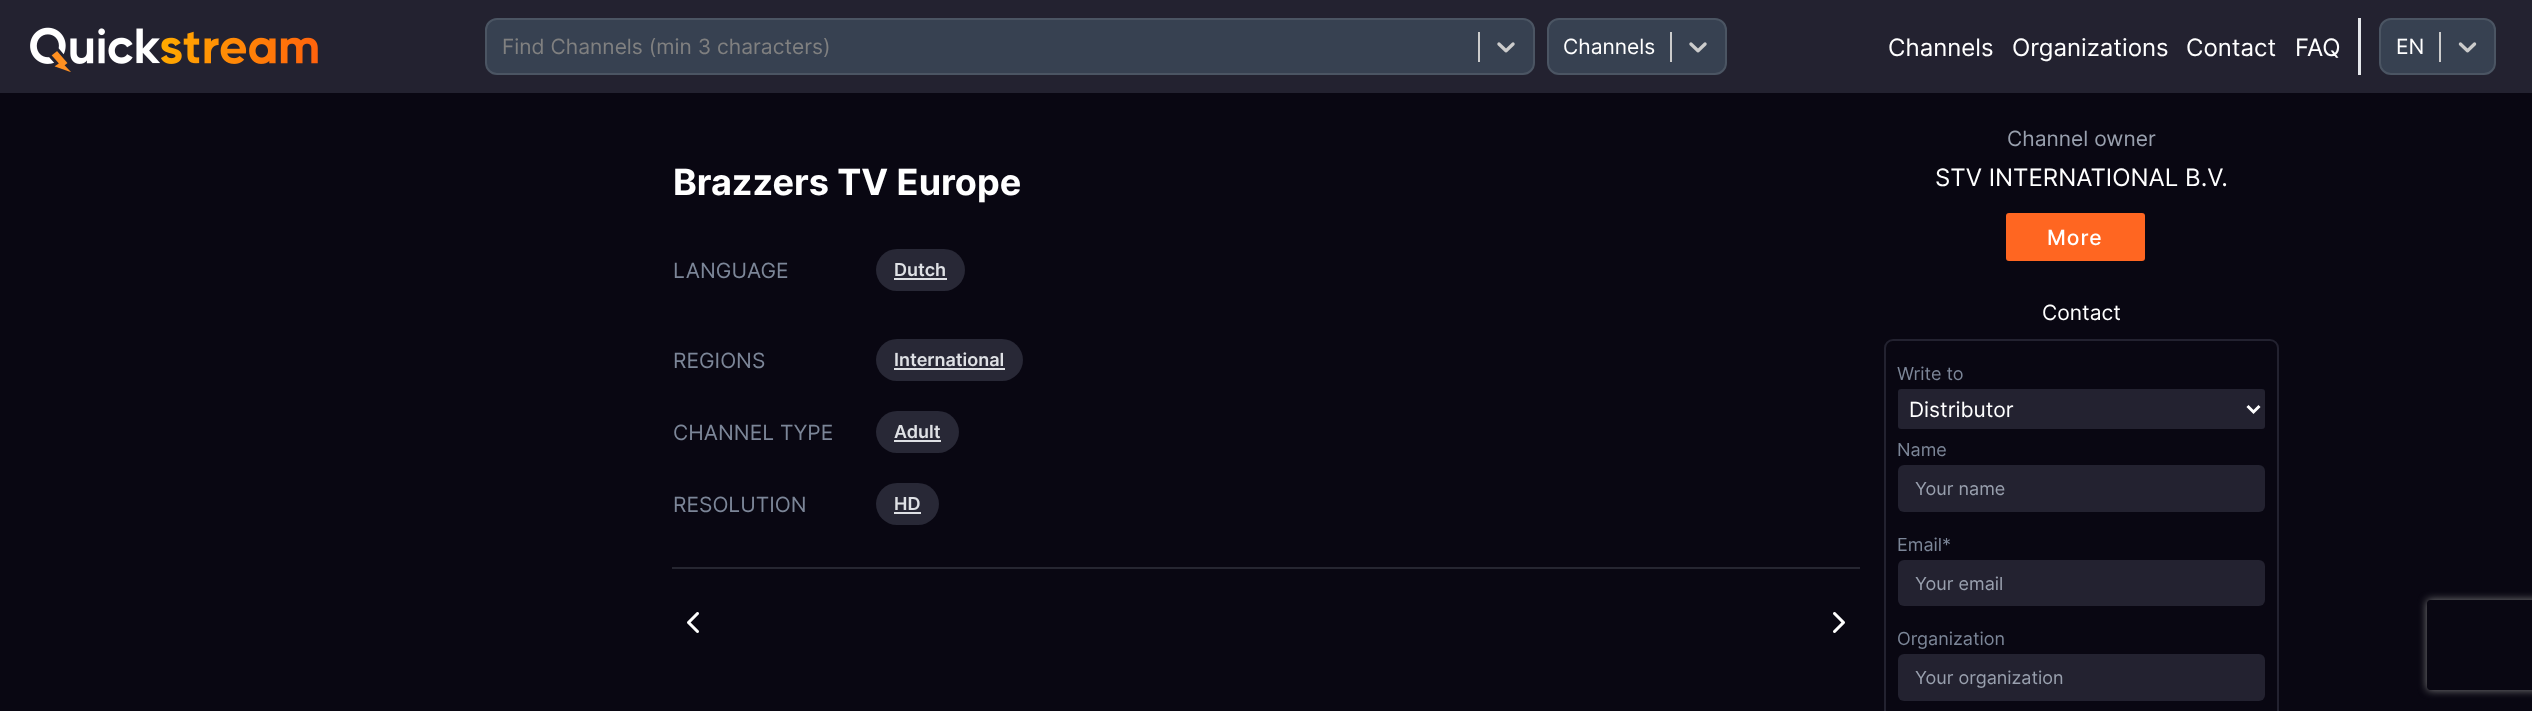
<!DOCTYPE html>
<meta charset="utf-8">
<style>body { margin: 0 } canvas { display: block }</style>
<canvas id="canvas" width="2532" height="711"></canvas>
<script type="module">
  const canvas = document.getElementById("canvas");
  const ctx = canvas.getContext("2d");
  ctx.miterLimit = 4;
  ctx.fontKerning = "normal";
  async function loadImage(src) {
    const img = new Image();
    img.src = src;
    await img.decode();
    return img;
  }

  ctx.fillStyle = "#090712";
  ctx.fillRect(0, 0, 2532, 711);
  ctx.fillStyle = "#232230";
  ctx.fillRect(0, 0, 2532, 93);
  ctx.drawImage(await loadImage("img1.png"), 30, 27, 288, 45);
  ctx.fillStyle = "#374151";
  ctx.beginPath();
  ctx.roundRect(486, 19, 1048, 55, 11);
  ctx.fill();
  ctx.strokeStyle = "#4b5563";
  ctx.lineWidth = 2;
  ctx.stroke();
  ctx.font = "21px Inter";
  ctx.fillStyle = "#808080";
  ctx.fillText("Find Channels (min 3 characters)", 502, 54);
  ctx.fillStyle = "#cccccc";
  ctx.fillRect(1478, 32, 2, 30);
  ctx.drawImage(await loadImage("img2.png"), 1497, 42, 18, 11);
  ctx.fillStyle = "#374151";
  ctx.beginPath();
  ctx.roundRect(1548, 19, 178, 55, 11);
  ctx.fill();
  ctx.stroke();
  ctx.fillStyle = "#ffffff";
  ctx.fillText("Channels", 1563, 54);
  ctx.fillStyle = "#cccccc";
  ctx.fillRect(1670, 32, 2, 30);
  ctx.drawImage(await loadImage("img2.png"), 1689, 42, 18, 11);
  ctx.font = "24px Inter";
  ctx.fillStyle = "#ffffff";
  ctx.fillText("Channels", 1888, 56);
  ctx.fillText("Organizations", 2012, 56);
  ctx.fillText("Contact", 2186, 56);
  ctx.fillText("FAQ", 2295, 56);
  ctx.fillStyle = "#e5e7eb";
  ctx.fillRect(2358, 18, 3, 57);
  ctx.fillStyle = "#374151";
  ctx.beginPath();
  ctx.roundRect(2380, 19, 115, 55, 11);
  ctx.fill();
  ctx.stroke();
  ctx.font = "21px Inter";
  ctx.fillStyle = "#ffffff";
  ctx.fillText("EN", 2396, 54);
  ctx.fillStyle = "#cccccc";
  ctx.fillRect(2439, 32, 2, 30);
  ctx.drawImage(await loadImage("img3.png"), 2458, 42, 19, 11);
  ctx.font = "bold 36px Inter";
  ctx.fillStyle = "#ffffff";
  ctx.fillText("Brazzers TV Europe", 673, 195);
  ctx.font = "21px Inter";
  ctx.fillStyle = "#7c8698";
  ctx.fillText("LANGUAGE", 673, 278);
  ctx.fillStyle = "#282836";
  ctx.beginPath();
  ctx.roundRect(876, 249, 89, 42, 21);
  ctx.fill();
  ctx.font = "600 18px Inter";
  ctx.fillStyle = "#dfe1e5";
  ctx.fillText("Dutch", 894, 276);
  ctx.fillRect(894, 278, 53, 2);
  ctx.font = "21px Inter";
  ctx.fillStyle = "#7c8698";
  ctx.fillText("REGIONS", 673, 368);
  ctx.fillStyle = "#282836";
  ctx.beginPath();
  ctx.roundRect(876, 339, 147, 42, 21);
  ctx.fill();
  ctx.font = "600 18px Inter";
  ctx.fillStyle = "#dfe1e5";
  ctx.fillText("International", 894, 366);
  ctx.fillRect(894, 368, 111, 2);
  ctx.font = "21px Inter";
  ctx.fillStyle = "#7c8698";
  ctx.fillText("CHANNEL TYPE", 673, 440);
  ctx.fillStyle = "#282836";
  ctx.beginPath();
  ctx.roundRect(876, 411, 83, 42, 21);
  ctx.fill();
  ctx.font = "600 18px Inter";
  ctx.fillStyle = "#dfe1e5";
  ctx.fillText("Adult", 894, 438);
  ctx.fillRect(894, 440, 47, 2);
  ctx.font = "21px Inter";
  ctx.fillStyle = "#7c8698";
  ctx.fillText("RESOLUTION", 673, 512);
  ctx.fillStyle = "#282836";
  ctx.beginPath();
  ctx.roundRect(876, 483, 63, 42, 21);
  ctx.fill();
  ctx.font = "600 18px Inter";
  ctx.fillStyle = "#dfe1e5";
  ctx.fillText("HD", 894, 510);
  ctx.fillRect(894, 512, 27, 2);
  ctx.fillStyle = "#262631";
  ctx.fillRect(672, 567, 1188, 2);
  ctx.drawImage(await loadImage("img4.png"), 687, 612, 12, 21);
  ctx.drawImage(await loadImage("img5.png"), 1833, 612, 12, 21);
  ctx.font = "21px Inter";
  ctx.fillStyle = "#99a0ae";
  ctx.fillText("Channel owner", 2007, 146);
  ctx.font = "24px Inter";
  ctx.fillStyle = "#ffffff";
  ctx.fillText("STV INTERNATIONAL B.V.", 1935, 186);
  ctx.fillStyle = "#ff6621";
  ctx.beginPath();
  ctx.roundRect(2006, 213, 139, 48, 3);
  ctx.fill();
  ctx.letterSpacing = "1px";
  ctx.font = "500 21px Inter";
  ctx.fillStyle = "#ffffff";
  ctx.fillText("More", 2047, 245);
  ctx.letterSpacing = "0px";
  ctx.font = "21px Inter";
  ctx.fillText("Contact", 2042, 320);
  ctx.beginPath();
  ctx.roundRect(1885, 340, 393, 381, 8);
  ctx.strokeStyle = "#232230";
  ctx.stroke();
  ctx.font = "18px Inter";
  ctx.fillStyle = "#7c8698";
  ctx.fillText("Write to", 1897, 380);
  ctx.fillStyle = "#232230";
  ctx.beginPath();
  ctx.roundRect(1898, 389, 367, 40, 3);
  ctx.fill();
  ctx.beginPath();
  ctx.moveTo(2247.5, 406);
  ctx.lineTo(2253.5, 412);
  ctx.lineTo(2259.5, 406);
  ctx.strokeStyle = "#ffffff";
  ctx.lineWidth = 3;
  ctx.stroke();
  ctx.font = "21px Inter";
  ctx.fillStyle = "#ffffff";
  ctx.fillText("Distributor", 1909, 417);
  ctx.font = "18px Inter";
  ctx.fillStyle = "#7c8698";
  ctx.fillText("Name", 1897, 456);
  ctx.fillStyle = "#232230";
  ctx.beginPath();
  ctx.roundRect(1898, 465, 367, 47, 6);
  ctx.fill();
  ctx.fillStyle = "#99a0ae";
  ctx.fillText("Your name", 1915, 495);
  ctx.fillStyle = "#7c8698";
  ctx.fillText("Email*", 1897, 551);
  ctx.fillStyle = "#232230";
  ctx.beginPath();
  ctx.roundRect(1898, 560, 367, 46, 6);
  ctx.fill();
  ctx.fillStyle = "#99a0ae";
  ctx.fillText("Your email", 1915, 590);
  ctx.fillStyle = "#7c8698";
  ctx.fillText("Organization", 1897, 645);
  ctx.fillStyle = "#232230";
  ctx.beginPath();
  ctx.roundRect(1898, 654, 367, 47, 6);
  ctx.fill();
  ctx.fillStyle = "#99a0ae";
  ctx.fillText("Your organization", 1915, 684);
  ctx.save();
  ctx.beginPath();
  ctx.moveTo(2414, 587);
  ctx.lineTo(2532, 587);
  ctx.lineTo(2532, 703);
  ctx.lineTo(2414, 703);
  ctx.closePath();
  ctx.moveTo(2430, 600);
  ctx.lineTo(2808, 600);
  ctx.bezierCurveTo(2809.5, 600, 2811, 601.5, 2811, 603);
  ctx.lineTo(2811, 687);
  ctx.bezierCurveTo(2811, 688.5, 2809.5, 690, 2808, 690);
  ctx.lineTo(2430, 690);
  ctx.bezierCurveTo(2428.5, 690, 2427, 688.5, 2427, 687);
  ctx.lineTo(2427, 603);
  ctx.bezierCurveTo(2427, 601.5, 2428.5, 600, 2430, 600);
  ctx.closePath();
  ctx.clip("evenodd");
  ctx.fillStyle = "#808080";
  ctx.filter = "blur(4px)";
  ctx.beginPath();
  ctx.roundRect(2427, 600, 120, 90, 3);
  ctx.fill();
  ctx.filter = "none";
  ctx.restore();
</script>
